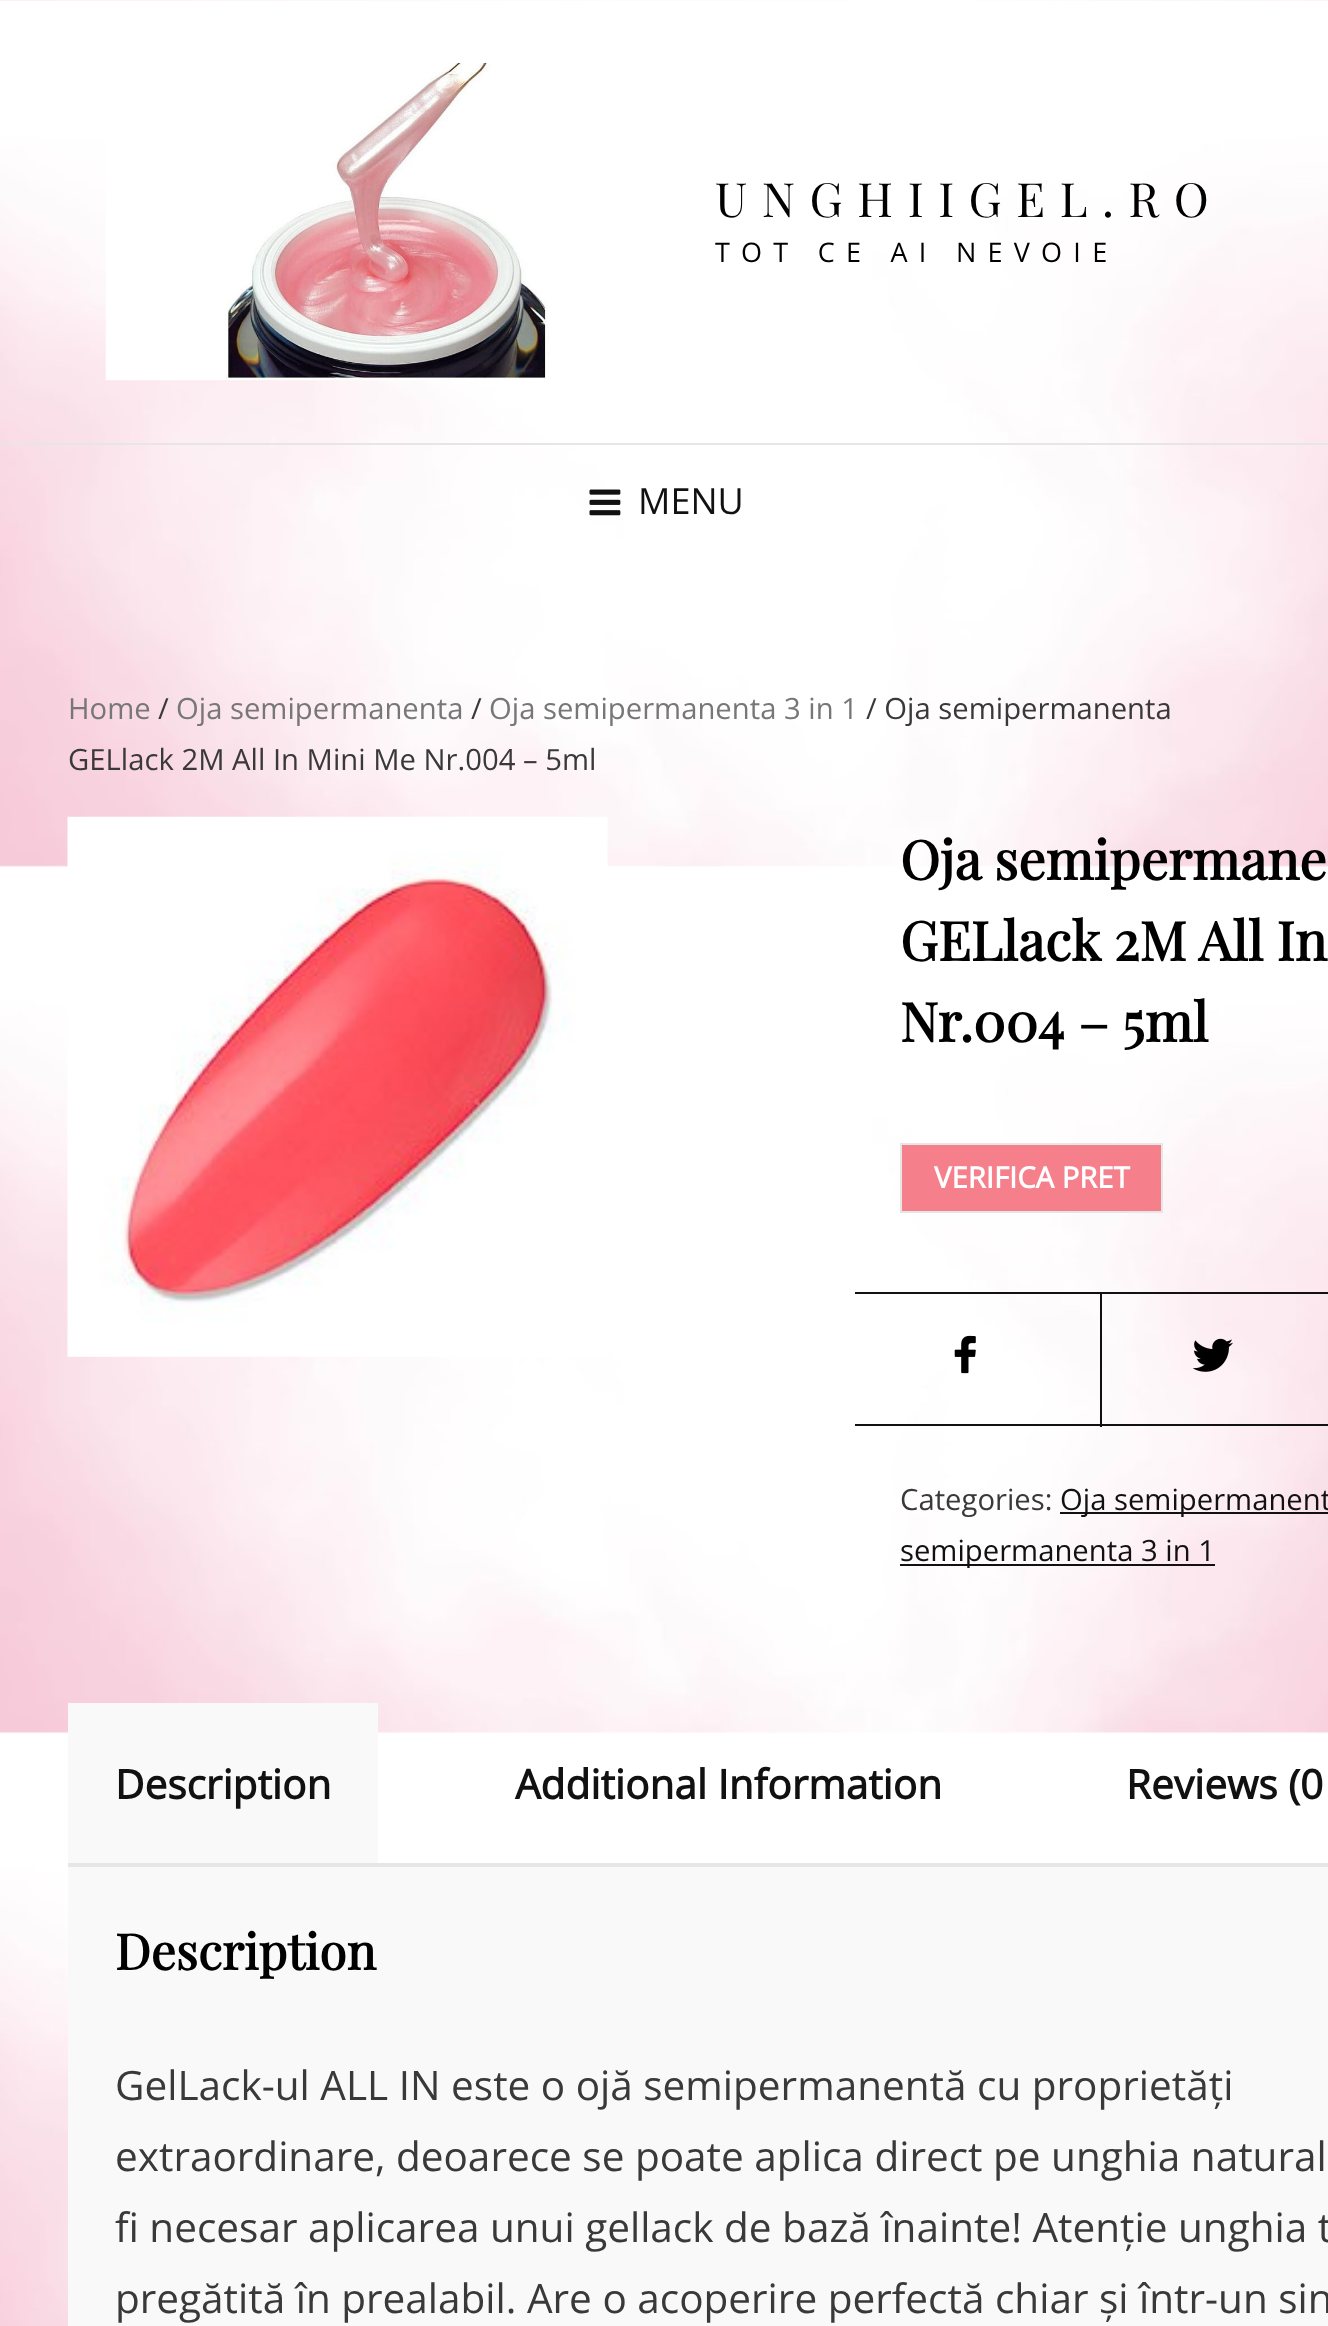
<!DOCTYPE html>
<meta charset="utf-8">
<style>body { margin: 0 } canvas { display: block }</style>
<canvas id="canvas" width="1328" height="2326"></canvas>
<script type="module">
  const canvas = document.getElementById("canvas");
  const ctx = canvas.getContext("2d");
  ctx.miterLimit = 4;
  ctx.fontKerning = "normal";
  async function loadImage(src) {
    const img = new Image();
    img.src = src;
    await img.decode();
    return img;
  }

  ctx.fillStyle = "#ffffff";
  ctx.fillRect(0, 0, 1328, 2326);
  ctx.drawImage(await loadImage("img1.png"), 0, 0, 1328, 2326);
  ctx.drawImage(await loadImage("img2.png"), 105, 63, 445, 318);
  ctx.letterSpacing = "14.6px";
  ctx.font = "47.25px Playfair Display";
  ctx.fillStyle = "#000000";
  ctx.fillText("UNGHIIGEL.RO", 715, 217);
  ctx.letterSpacing = "11.25px";
  ctx.font = "27px Open Sans";
  ctx.fillText("TOT CE AI NEVOIE", 715, 262);
  ctx.fillStyle = "#e6e6e6";
  ctx.fillRect(0, 443, 1328, 2);
  ctx.drawImage(await loadImage("img3.png"), 589, 489, 32, 27);
  ctx.letterSpacing = "0px";
  ctx.font = "36px Open Sans";
  ctx.fillStyle = "#111111";
  ctx.fillText("MENU", 638, 514);
  ctx.font = "29.25px Open Sans";
  ctx.fillStyle = "#777777";
  ctx.fillText("Home", 68, 719);
  ctx.fillStyle = "#393939";
  ctx.fillText("/", 158, 719);
  ctx.fillStyle = "#777777";
  ctx.fillText("Oja semipermanenta", 176, 719);
  ctx.fillStyle = "#393939";
  ctx.fillText("/", 471, 719);
  ctx.fillStyle = "#777777";
  ctx.fillText("Oja semipermanenta 3 in 1", 489, 719);
  ctx.fillStyle = "#393939";
  ctx.fillText("/ Oja semipermanenta", 866, 719);
  ctx.fillText("GELlack 2M All In Mini Me Nr.004 – 5ml", 68, 770);
  ctx.drawImage(await loadImage("img4.png"), 67, 816, 541, 541);
  ctx.font = "bold 54px Playfair Display";
  ctx.fillStyle = "#000000";
  ctx.fillText("Oja semipermane", 900, 880);
  ctx.fillText("GELlack 2M All In", 900, 961);
  ctx.fillText("Nr.004 – 5ml", 900, 1042);
  ctx.fillStyle = "#f5808c";
  ctx.beginPath();
  ctx.rect(901, 1144, 261, 68);
  ctx.fill();
  ctx.strokeStyle = "#e6e6e6";
  ctx.lineWidth = 2;
  ctx.stroke();
  ctx.font = "bold 29.25px Open Sans";
  ctx.fillStyle = "#ffffff";
  ctx.fillText("VERIFICA PRET", 934, 1188);
  ctx.fillStyle = "#111111";
  ctx.fillRect(855, 1292, 473, 2);
  ctx.fillRect(1100, 1292, 2, 135);
  ctx.fillRect(855, 1424, 473, 2);
  ctx.drawImage(await loadImage("img5.png"), 954, 1335, 22, 39);
  ctx.drawImage(await loadImage("img6.png"), 1193, 1338, 40, 34);
  ctx.font = "29.25px Open Sans";
  ctx.fillStyle = "#393939";
  ctx.fillText("Categories:", 900, 1510);
  ctx.fillStyle = "#111111";
  ctx.fillRect(1060, 1512, 268, 2);
  ctx.fillText("Oja semipermanent", 1060, 1510);
  ctx.fillRect(900, 1564, 315, 2);
  ctx.fillText("semipermanenta 3 in 1", 900, 1561);
  ctx.fillStyle = "#f9f9f9";
  ctx.fillRect(68, 1703, 310, 160);
  ctx.font = "bold 40.5px Open Sans";
  ctx.fillStyle = "#111111";
  ctx.fillText("Description", 115, 1799);
  ctx.fillText("Additional Information", 515, 1799);
  ctx.fillText("Reviews (0", 1126, 1799);
  ctx.fillStyle = "#f9f9f9";
  ctx.fillRect(68, 1867, 1260, 459);
  ctx.fillStyle = "#e6e6e6";
  ctx.fillRect(68, 1863, 1260, 4);
  ctx.font = "bold 49.5px Playfair Display";
  ctx.fillStyle = "#000000";
  ctx.fillText("Description", 115, 1970);
  ctx.font = "40.5px Open Sans";
  ctx.fillStyle = "#393939";
  ctx.fillText("GelLack-ul ALL IN este o ojă semipermanentă cu proprietăți", 115, 2100);
  ctx.fillText("extraordinare, deoarece se poate aplica direct pe unghia natural", 115, 2171);
  ctx.fillText("fi necesar aplicarea unui gellack de bază înainte! Atenție unghia t", 115, 2242);
  ctx.fillText("pregătită în prealabil. Are o acoperire perfectă chiar și într-un sin", 115, 2313);
</script>
